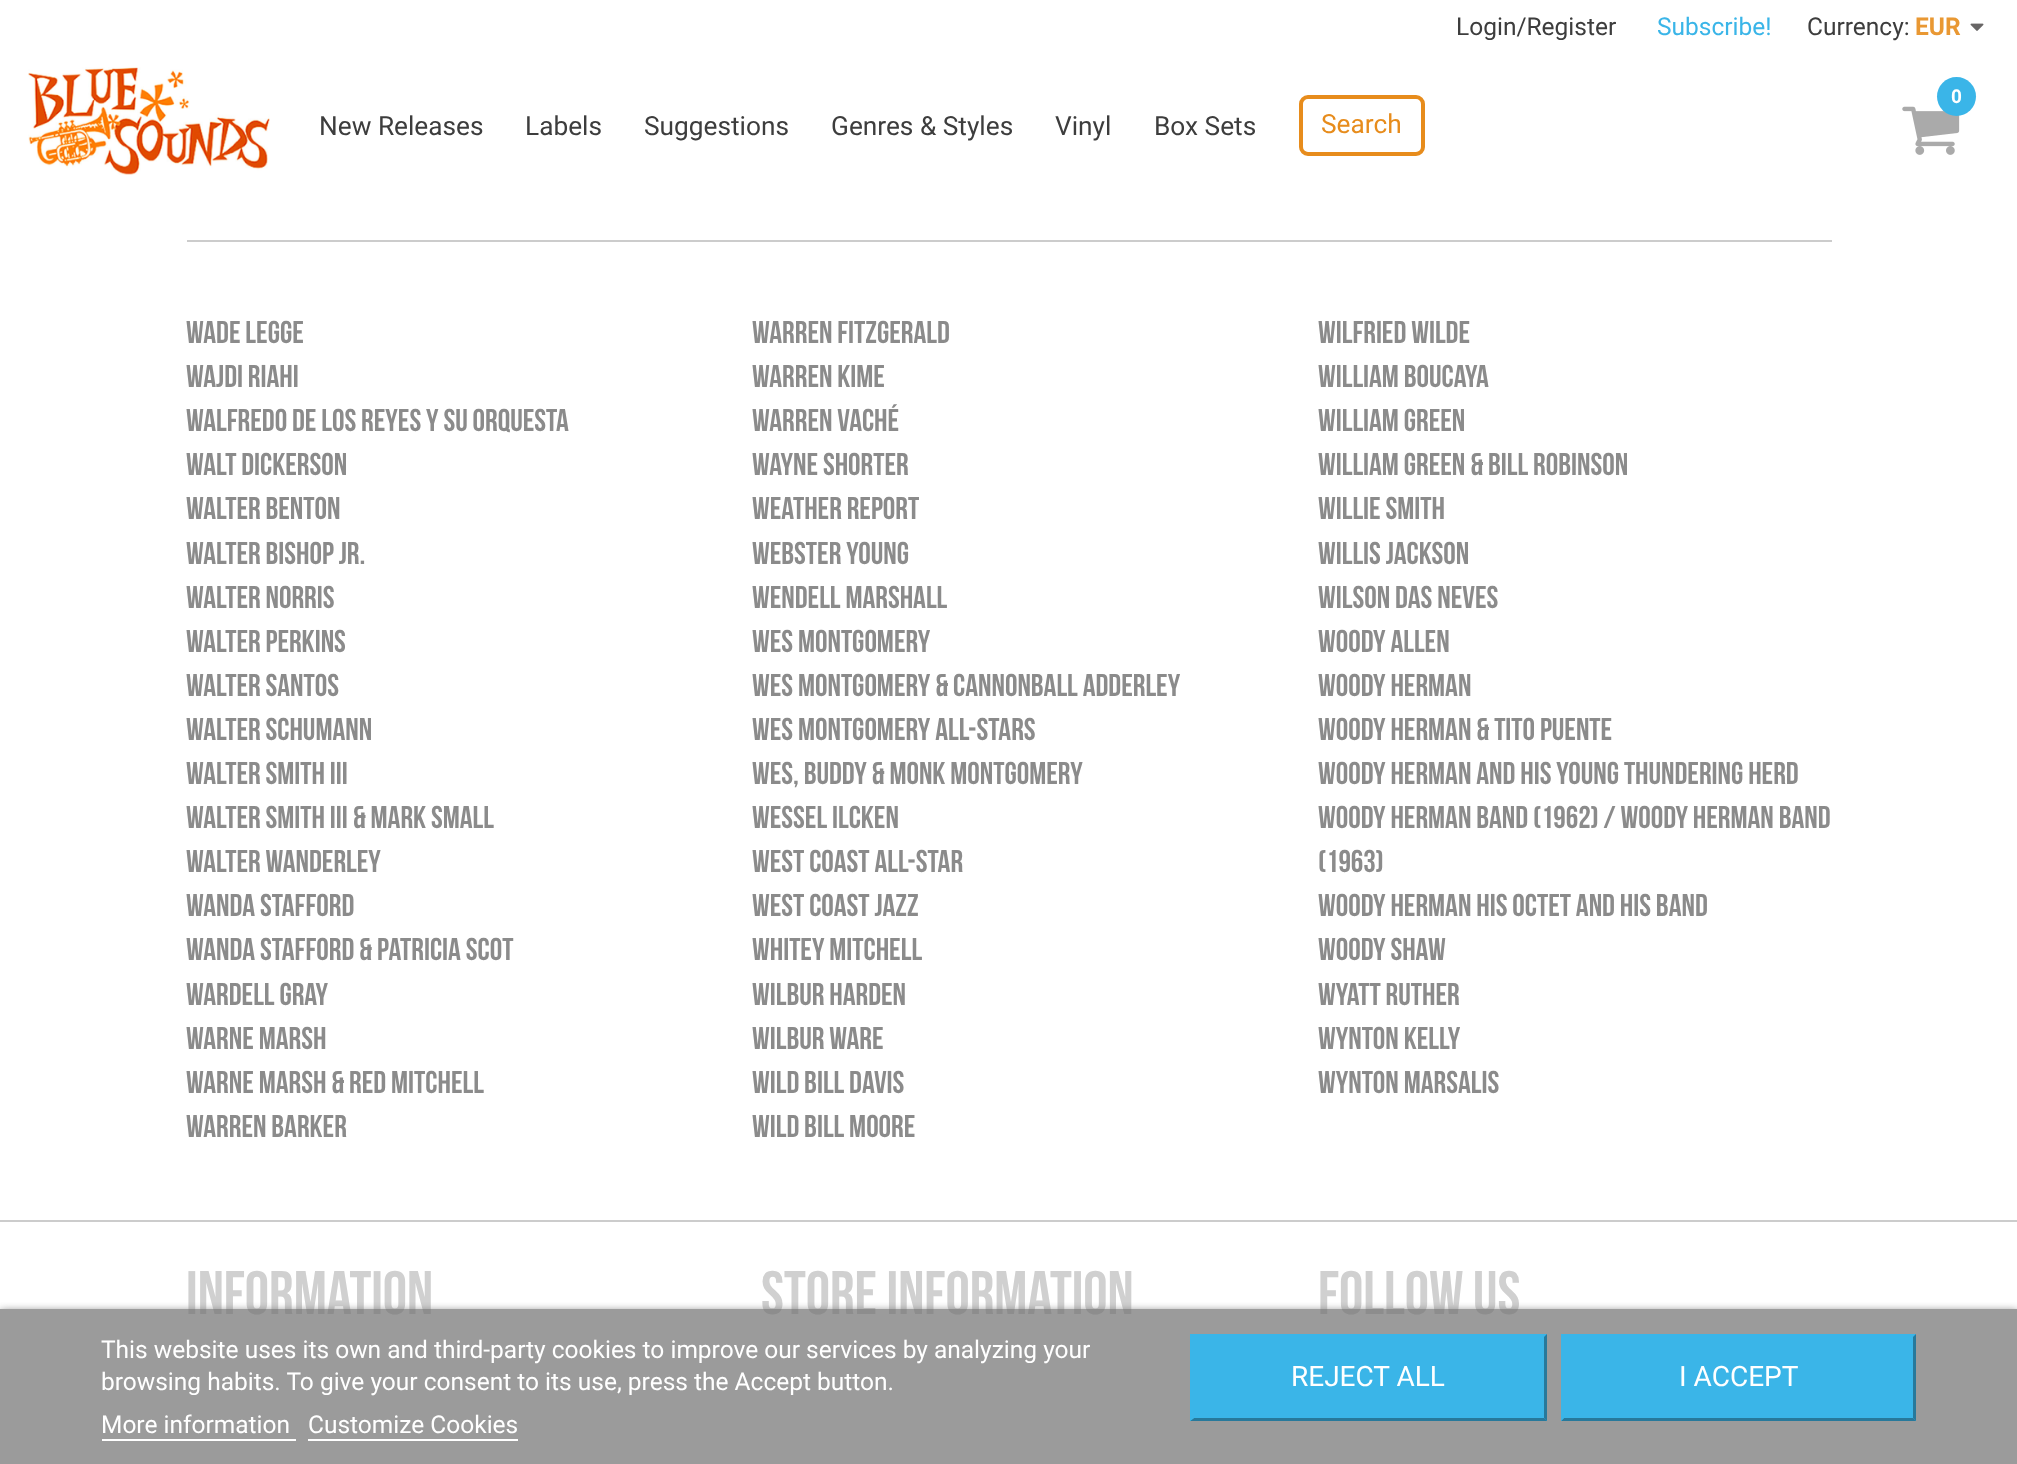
<!DOCTYPE html>
<meta charset="utf-8">
<style>body { margin: 0 } canvas { display: block }</style>
<canvas id="canvas" width="2017" height="1464"></canvas>
<script type="module">
  const canvas = document.getElementById("canvas");
  const ctx = canvas.getContext("2d");
  ctx.miterLimit = 4;
  ctx.fontKerning = "normal";
  async function loadImage(src) {
    const img = new Image();
    img.src = src;
    await img.decode();
    return img;
  }

  ctx.fillStyle = "#ffffff";
  ctx.fillRect(0, 0, 2017, 1464);
  ctx.font = "24.5px Roboto";
  ctx.fillStyle = "#3d3d3d";
  ctx.fillText("Login/Register", 1456, 35);
  ctx.fillStyle = "#3ab5e8";
  ctx.fillText("Subscribe!", 1657, 35);
  ctx.fillStyle = "#3d3d3d";
  ctx.fillText("Currency:", 1807, 35);
  ctx.font = "bold 24.5px Roboto";
  ctx.fillStyle = "#e99833";
  ctx.fillText("EUR", 1915, 35);
  ctx.drawImage(await loadImage("img1.png"), 1970, 23, 14, 8);
  ctx.drawImage(await loadImage("img2.png"), 28, 67, 242, 108);
  ctx.drawImage(await loadImage("img3.png"), 1902, 106, 58, 49);
  ctx.fillStyle = "#3ab5e8";
  ctx.beginPath();
  ctx.arc(1956.5, 96.5, 19.5, 0, Math.PI * 2);
  ctx.fill();
  ctx.font = "bold 19px Roboto";
  ctx.fillStyle = "#ffffff";
  ctx.fillText("0", 1951, 103);
  ctx.font = "26.25px Roboto";
  ctx.fillStyle = "#3d3d3d";
  ctx.fillText("New Releases", 319, 135);
  ctx.fillText("Labels", 525, 135);
  ctx.fillText("Suggestions", 644, 135);
  ctx.fillText("Genres & Styles", 831, 135);
  ctx.fillText("Vinyl", 1055, 135);
  ctx.fillText("Box Sets", 1154, 135);
  ctx.beginPath();
  ctx.roundRect(1301, 97, 122, 57, 7);
  ctx.strokeStyle = "#e78c1c";
  ctx.lineWidth = 4;
  ctx.stroke();
  ctx.fillStyle = "#e78c1c";
  ctx.fillText("Search", 1321, 133);
  ctx.fillStyle = "#cccccc";
  ctx.fillRect(187, 240, 1645, 2);
  ctx.font = "31.5px Bebas Neue";
  ctx.fillStyle = "#8b8b8b";
  ctx.fillText("WADE LEGGE", 186, 343);
  ctx.fillText("WARREN FITZGERALD", 752, 343);
  ctx.fillText("WILFRIED WILDE", 1318, 343);
  ctx.fillText("WAJDI RIAHI", 186, 387);
  ctx.fillText("WARREN KIME", 752, 387);
  ctx.fillText("WILLIAM BOUCAYA", 1318, 387);
  ctx.fillText("WALFREDO DE LOS REYES Y SU ORQUESTA", 186, 431);
  ctx.fillText("WARREN VACHÉ", 752, 431);
  ctx.fillText("WILLIAM GREEN", 1318, 431);
  ctx.fillText("WALT DICKERSON", 186, 475);
  ctx.fillText("WAYNE SHORTER", 752, 475);
  ctx.fillText("WILLIAM GREEN & BILL ROBINSON", 1318, 475);
  ctx.fillText("WALTER BENTON", 186, 519);
  ctx.fillText("WEATHER REPORT", 752, 519);
  ctx.fillText("WILLIE SMITH", 1318, 519);
  ctx.fillText("WALTER BISHOP JR.", 186, 564);
  ctx.fillText("WEBSTER YOUNG", 752, 564);
  ctx.fillText("WILLIS JACKSON", 1318, 564);
  ctx.fillText("WALTER NORRIS", 186, 608);
  ctx.fillText("WENDELL MARSHALL", 752, 608);
  ctx.fillText("WILSON DAS NEVES", 1318, 608);
  ctx.fillText("WALTER PERKINS", 186, 652);
  ctx.fillText("WES MONTGOMERY", 752, 652);
  ctx.fillText("WOODY ALLEN", 1318, 652);
  ctx.fillText("WALTER SANTOS", 186, 696);
  ctx.fillText("WES MONTGOMERY & CANNONBALL ADDERLEY", 752, 696);
  ctx.fillText("WOODY HERMAN", 1318, 696);
  ctx.fillText("WALTER SCHUMANN", 186, 740);
  ctx.fillText("WES MONTGOMERY ALL-STARS", 752, 740);
  ctx.fillText("WOODY HERMAN & TITO PUENTE", 1318, 740);
  ctx.fillText("WALTER SMITH III", 186, 784);
  ctx.fillText("WES, BUDDY & MONK MONTGOMERY", 752, 784);
  ctx.fillText("WOODY HERMAN AND HIS YOUNG THUNDERING HERD", 1318, 784);
  ctx.fillText("WALTER SMITH III & MARK SMALL", 186, 828);
  ctx.fillText("WESSEL ILCKEN", 752, 828);
  ctx.fillText("WOODY HERMAN BAND (1962) / WOODY HERMAN BAND", 1318, 828);
  ctx.fillText("(1963)", 1318, 872);
  ctx.fillText("WALTER WANDERLEY", 186, 872);
  ctx.fillText("WEST COAST ALL-STAR", 752, 872);
  ctx.fillText("WANDA STAFFORD", 186, 916);
  ctx.fillText("WEST COAST JAZZ", 752, 916);
  ctx.fillText("WOODY HERMAN HIS OCTET AND HIS BAND", 1318, 916);
  ctx.fillText("WANDA STAFFORD & PATRICIA SCOT", 186, 960);
  ctx.fillText("WHITEY MITCHELL", 752, 960);
  ctx.fillText("WOODY SHAW", 1318, 960);
  ctx.fillText("WARDELL GRAY", 186, 1005);
  ctx.fillText("WILBUR HARDEN", 752, 1005);
  ctx.fillText("WYATT RUTHER", 1318, 1005);
  ctx.fillText("WARNE MARSH", 186, 1049);
  ctx.fillText("WILBUR WARE", 752, 1049);
  ctx.fillText("WYNTON KELLY", 1318, 1049);
  ctx.fillText("WARNE MARSH & RED MITCHELL", 186, 1093);
  ctx.fillText("WILD BILL DAVIS", 752, 1093);
  ctx.fillText("WYNTON MARSALIS", 1318, 1093);
  ctx.fillText("WARREN BARKER", 186, 1137);
  ctx.fillText("WILD BILL MOORE", 752, 1137);
  ctx.fillStyle = "#cccccc";
  ctx.fillRect(0, 1220, 2017, 2);
  ctx.font = "61.25px Bebas Neue";
  ctx.fillStyle = "#d0d0d0";
  ctx.fillText("INFORMATION", 186, 1314);
  ctx.fillText("STORE INFORMATION", 761, 1314);
  ctx.fillText("FOLLOW US", 1318, 1314);
  ctx.save();
  ctx.beginPath();
  ctx.rect(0, 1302, 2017, 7);
  ctx.clip();
  ctx.fillStyle = "#707070";
  ctx.filter = "blur(4.5px)";
  ctx.beginPath();
  ctx.rect(0, 1311, 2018, 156);
  ctx.fill();
  ctx.filter = "none";
  ctx.restore();
  ctx.fillStyle = "rgba(112, 112, 112, 0.7)";
  ctx.fillRect(0, 1309, 2017, 155);
  ctx.font = "24.5px Roboto";
  ctx.fillStyle = "#ffffff";
  ctx.fillText("This website uses its own and third-party cookies to improve our services by analyzing your", 101, 1358);
  ctx.fillText("browsing habits. To give your consent to its use, press the Accept button.", 101, 1390);
  ctx.fillText("More information", 101, 1433);
  ctx.fillRect(102, 1439, 194, 2);
  ctx.fillText("Customize Cookies", 308, 1433);
  ctx.fillRect(308, 1439, 210, 2);
  ctx.fillStyle = "#3ab5e8";
  ctx.fillRect(1190, 1334, 357, 87);
  ctx.fillStyle = "#27799b";
  ctx.beginPath();
  ctx.moveTo(1547, 1334);
  ctx.lineTo(1547, 1421);
  ctx.lineTo(1544, 1418);
  ctx.lineTo(1544, 1337);
  ctx.closePath();
  ctx.fill();
  ctx.beginPath();
  ctx.moveTo(1547, 1421);
  ctx.lineTo(1190, 1421);
  ctx.lineTo(1194, 1418);
  ctx.lineTo(1544, 1418);
  ctx.closePath();
  ctx.fill();
  ctx.fillStyle = "#3ab5e8";
  ctx.beginPath();
  ctx.moveTo(1190, 1421);
  ctx.lineTo(1190, 1334);
  ctx.lineTo(1194, 1337);
  ctx.lineTo(1194, 1418);
  ctx.closePath();
  ctx.fill();
  ctx.font = "28px Roboto";
  ctx.fillStyle = "#ffffff";
  ctx.fillText("REJECT ALL", 1291, 1386);
  ctx.fillStyle = "#3ab5e8";
  ctx.fillRect(1561, 1334, 355, 87);
  ctx.fillStyle = "#27799b";
  ctx.beginPath();
  ctx.moveTo(1916, 1334);
  ctx.lineTo(1916, 1421);
  ctx.lineTo(1913, 1418);
  ctx.lineTo(1913, 1337);
  ctx.closePath();
  ctx.fill();
  ctx.beginPath();
  ctx.moveTo(1916, 1421);
  ctx.lineTo(1561, 1421);
  ctx.lineTo(1564, 1418);
  ctx.lineTo(1913, 1418);
  ctx.closePath();
  ctx.fill();
  ctx.fillStyle = "#3ab5e8";
  ctx.beginPath();
  ctx.moveTo(1561, 1421);
  ctx.lineTo(1561, 1334);
  ctx.lineTo(1564, 1337);
  ctx.lineTo(1564, 1418);
  ctx.closePath();
  ctx.fill();
  ctx.fillStyle = "#ffffff";
  ctx.fillText("I ACCEPT", 1679, 1386);
</script>
